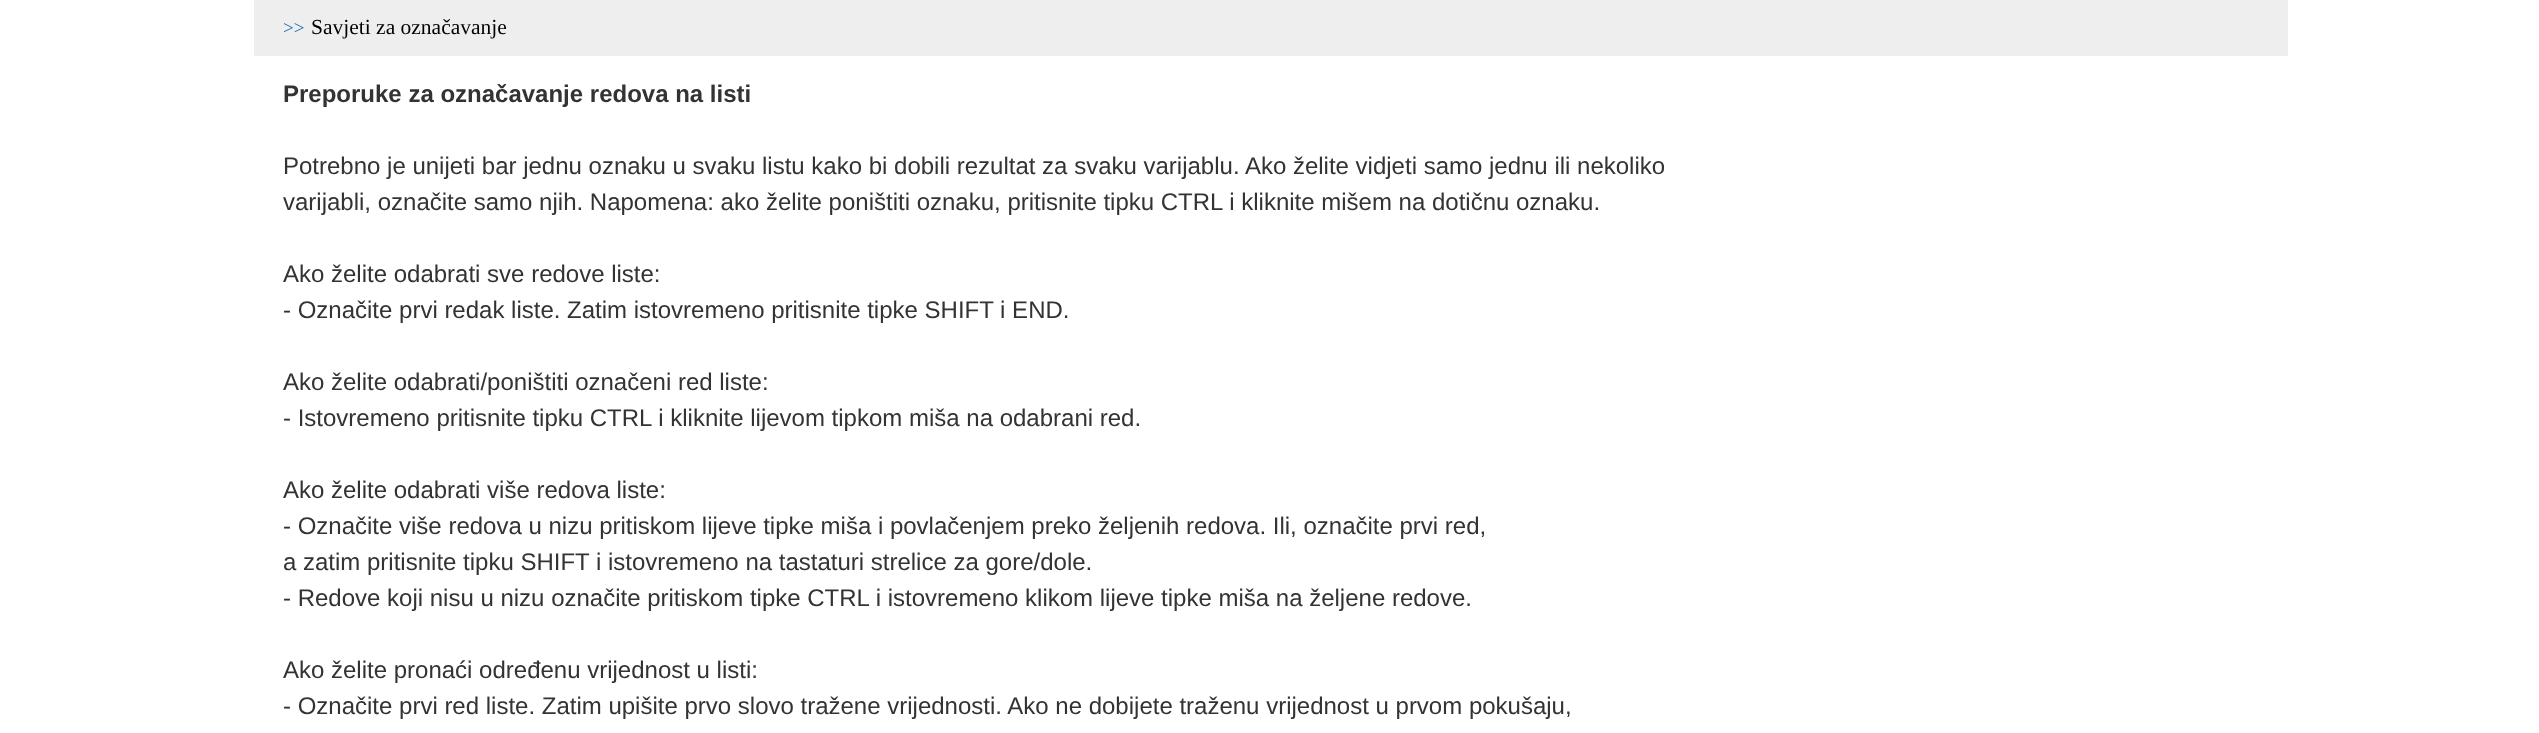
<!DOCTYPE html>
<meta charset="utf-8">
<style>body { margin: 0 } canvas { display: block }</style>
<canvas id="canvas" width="2539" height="733"></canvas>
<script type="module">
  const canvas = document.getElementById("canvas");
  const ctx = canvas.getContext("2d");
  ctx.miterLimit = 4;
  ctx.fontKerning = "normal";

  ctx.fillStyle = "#ffffff";
  ctx.fillRect(0, 0, 2539, 733);
  ctx.fillStyle = "#eeeeee";
  ctx.fillRect(254, 0, 2034, 56);
  ctx.font = "19px Liberation Serif";
  ctx.fillStyle = "#2870ae";
  ctx.fillText(">>", 283, 34);
  ctx.font = "21.5px Liberation Serif";
  ctx.fillStyle = "#000000";
  ctx.fillText("Savjeti za označavanje", 311, 34);
  ctx.font = "bold 24px Liberation Sans";
  ctx.fillStyle = "#333333";
  ctx.fillText("Preporuke za označavanje redova na listi", 283, 102);
  ctx.font = "24px Liberation Sans";
  ctx.fillText("Potrebno je unijeti bar jednu oznaku u svaku listu kako bi dobili rezultat za svaku varijablu. Ako želite vidjeti samo jednu ili nekoliko", 283, 174);
  ctx.fillText("varijabli, označite samo njih. Napomena: ako želite poništiti oznaku, pritisnite tipku CTRL i kliknite mišem na dotičnu oznaku.", 283, 210);
  ctx.fillText("Ako želite odabrati sve redove liste:", 283, 282);
  ctx.fillText("- Označite prvi redak liste. Zatim istovremeno pritisnite tipke SHIFT i END.", 283, 318);
  ctx.fillText("Ako želite odabrati/poništiti označeni red liste:", 283, 390);
  ctx.fillText("- Istovremeno pritisnite tipku CTRL i kliknite lijevom tipkom miša na odabrani red.", 283, 426);
  ctx.fillText("Ako želite odabrati više redova liste:", 283, 498);
  ctx.fillText("- Označite više redova u nizu pritiskom lijeve tipke miša i povlačenjem preko željenih redova. Ili, označite prvi red,", 283, 534);
  ctx.fillText("a zatim pritisnite tipku SHIFT i istovremeno na tastaturi strelice za gore/dole.", 283, 570);
  ctx.fillText("- Redove koji nisu u nizu označite pritiskom tipke CTRL i istovremeno klikom lijeve tipke miša na željene redove.", 283, 606);
  ctx.fillText("Ako želite pronaći određenu vrijednost u listi:", 283, 678);
  ctx.fillText("- Označite prvi red liste. Zatim upišite prvo slovo tražene vrijednosti. Ako ne dobijete traženu vrijednost u prvom pokušaju,", 283, 714);
</script>
